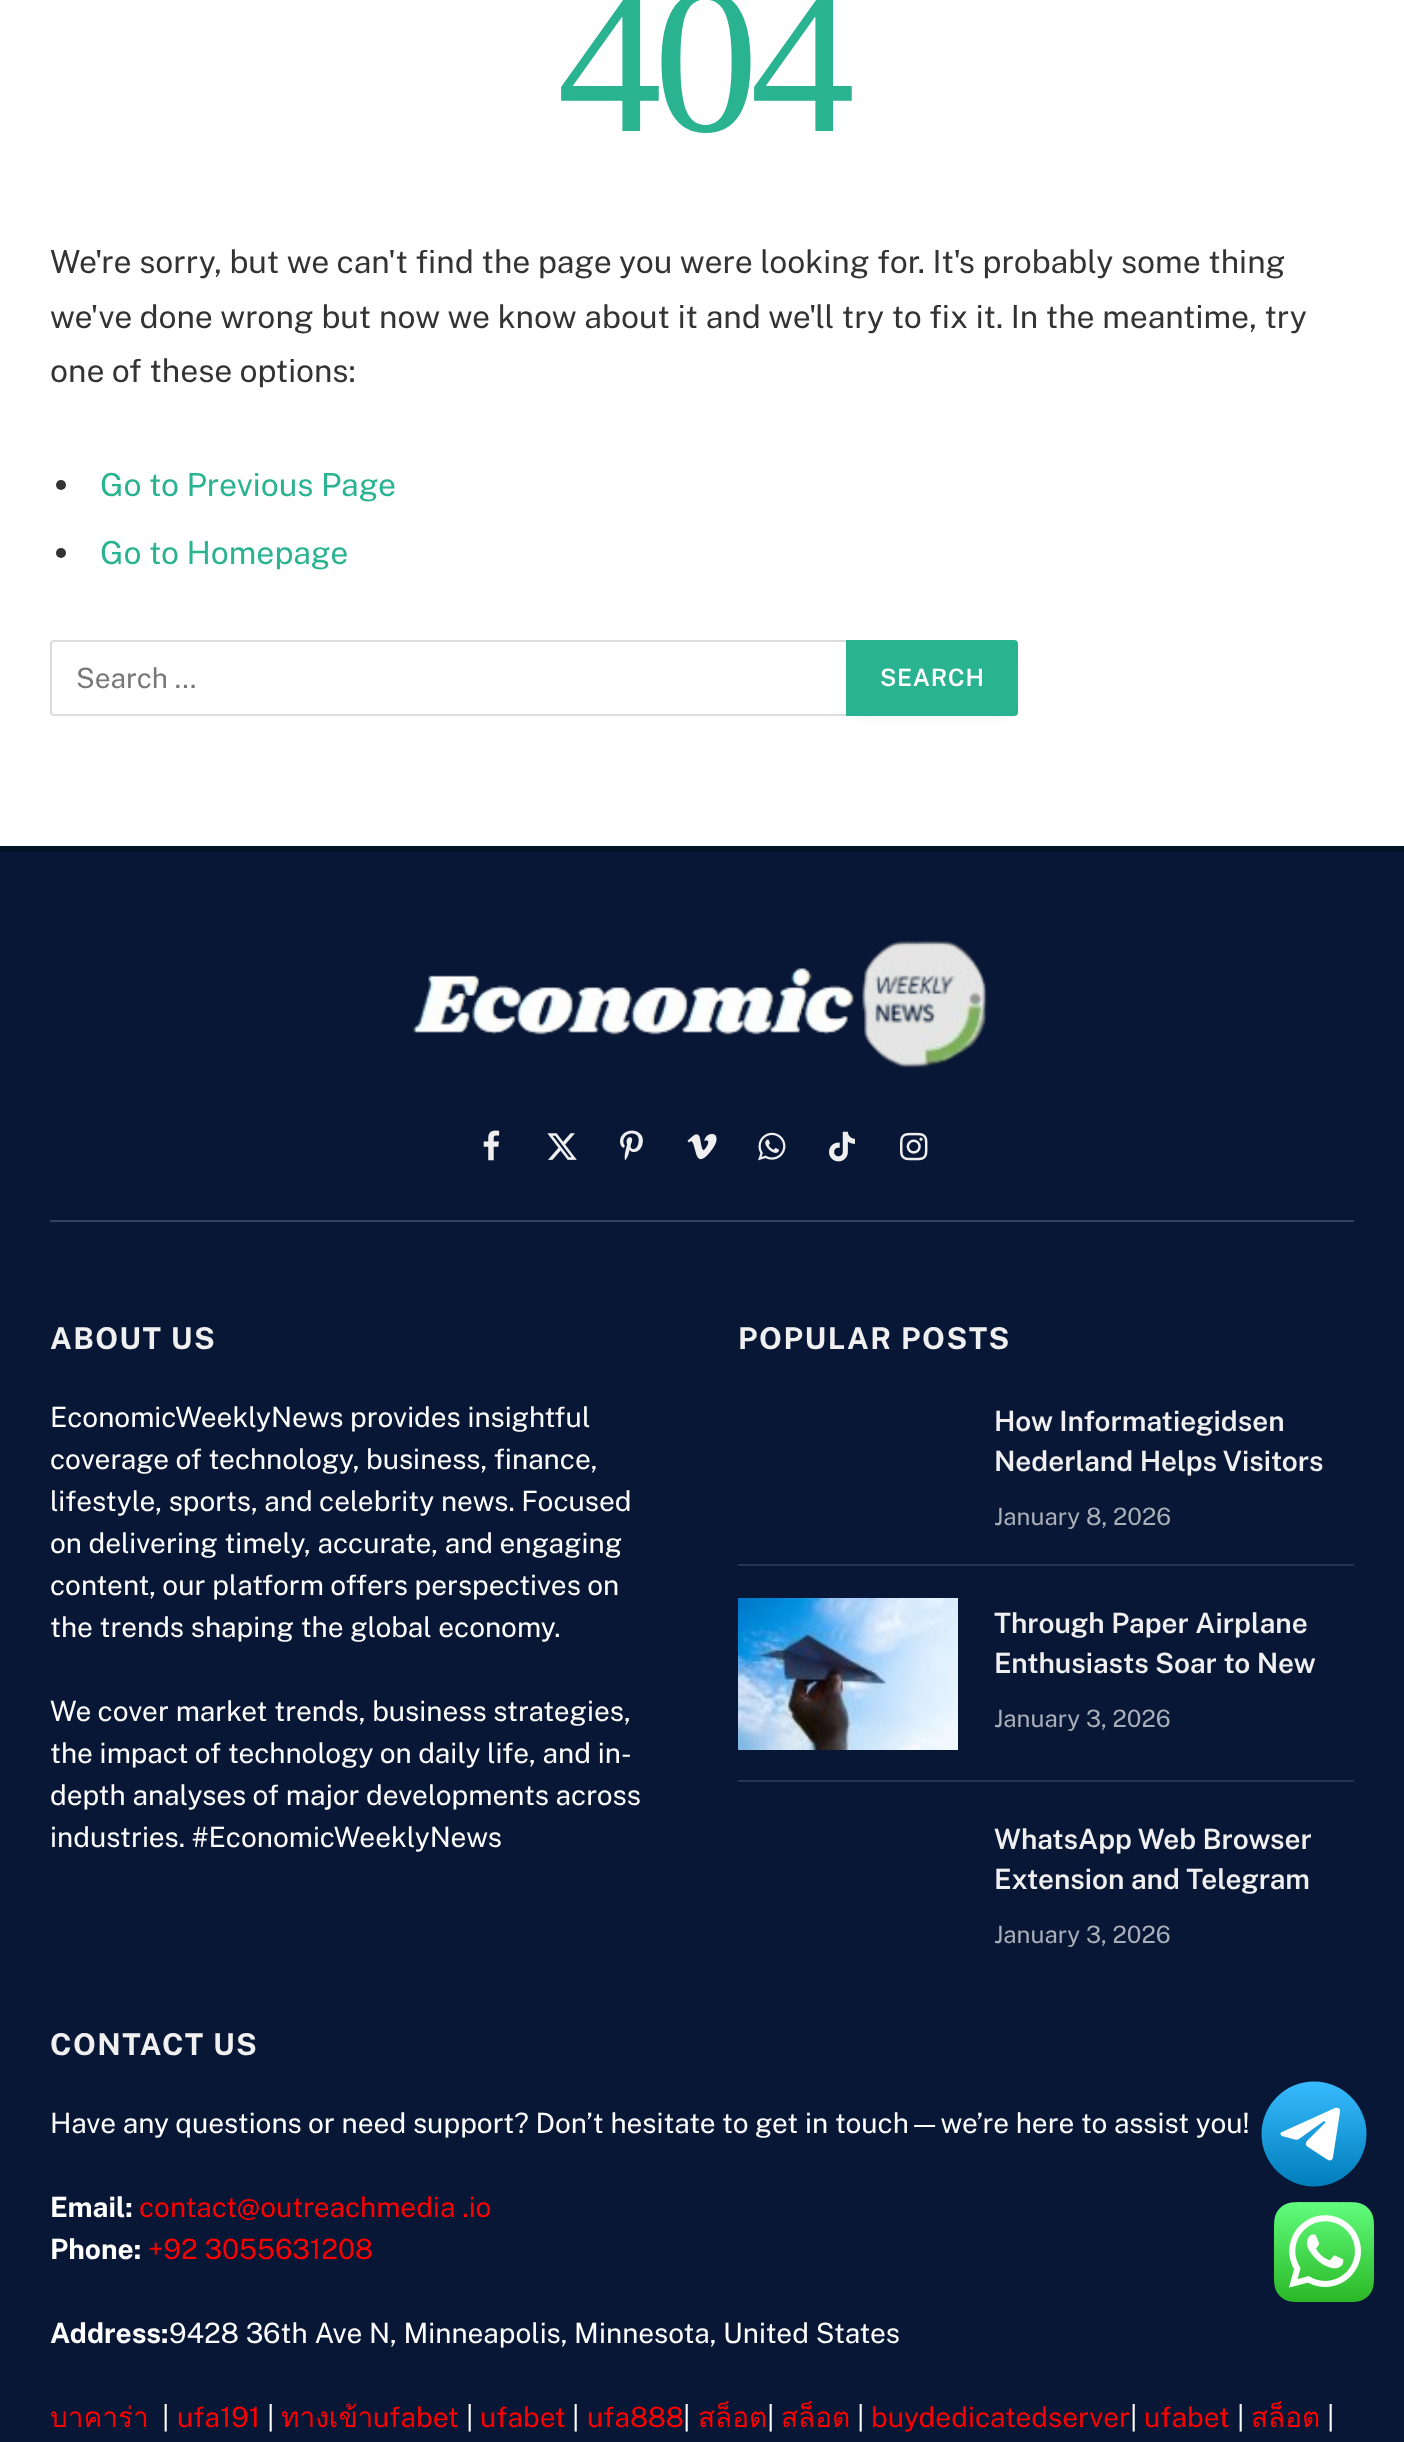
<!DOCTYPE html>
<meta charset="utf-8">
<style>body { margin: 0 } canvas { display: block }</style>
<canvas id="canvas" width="1404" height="2442"></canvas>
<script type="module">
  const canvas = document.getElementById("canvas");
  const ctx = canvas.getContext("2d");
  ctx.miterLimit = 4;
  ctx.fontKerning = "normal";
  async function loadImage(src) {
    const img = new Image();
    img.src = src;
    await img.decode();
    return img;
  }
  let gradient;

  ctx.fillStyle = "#ffffff";
  ctx.fillRect(0, 0, 1404, 2442);
  ctx.letterSpacing = "-8.5px";
  ctx.font = "210px Liberation Serif";
  ctx.fillStyle = "#2ab391";
  ctx.fillText("404", 557, 131);
  ctx.letterSpacing = "0px";
  ctx.font = "31.9px Public Sans";
  ctx.fillStyle = "#333333";
  ctx.fillText("We're sorry, but we can't find the page you were looking for. It's probably some thing", 50, 273);
  ctx.fillText("we've done wrong but now we know about it and we'll try to fix it. In the meantime, try", 50, 328);
  ctx.fillText("one of these options:", 50, 382);
  ctx.beginPath();
  ctx.arc(61, 485, 5, 0, Math.PI * 2);
  ctx.fill();
  ctx.fillStyle = "#2ab391";
  ctx.fillText("Go to Previous Page", 100, 496);
  ctx.fillStyle = "#333333";
  ctx.beginPath();
  ctx.arc(61, 553, 5, 0, Math.PI * 2);
  ctx.fill();
  ctx.fillStyle = "#2ab391";
  ctx.fillText("Go to Homepage", 100, 564);
  ctx.beginPath();
  ctx.roundRect(51, 641, 798, 74, 3);
  ctx.strokeStyle = "#dddddd";
  ctx.lineWidth = 2;
  ctx.stroke();
  ctx.font = "28px Public Sans";
  ctx.fillStyle = "#777777";
  ctx.fillText("Search …", 76, 688);
  ctx.fillStyle = "rgba(0, 0, 0, 0.16)";
  ctx.filter = "blur(7px)";
  ctx.beginPath();
  ctx.rect(854, 652, 156, 60);
  ctx.fill();
  ctx.filter = "none";
  ctx.fillStyle = "#2ab391";
  ctx.beginPath();
  ctx.roundRect(846, 640, 172, 76, [0, 4, 4, 0]);
  ctx.fill();
  ctx.letterSpacing = "0.75px";
  ctx.font = "600 24px Public Sans";
  ctx.fillStyle = "#ffffff";
  ctx.fillText("SEARCH", 880, 686);
  ctx.fillStyle = "#081736";
  ctx.fillRect(0, 852, 1404, 1590);
  ctx.fillStyle = "#001526";
  ctx.fillRect(0, 846, 1404, 6);
  ctx.drawImage(await loadImage("img1.png"), 413, 941, 574, 127);
  ctx.drawImage(await loadImage("img2.png"), 483, 1130, 17, 31);
  ctx.drawImage(await loadImage("img3.png"), 547, 1133, 30, 27);
  ctx.drawImage(await loadImage("img4.png"), 620, 1130, 23, 31);
  ctx.drawImage(await loadImage("img5.png"), 687, 1134, 30, 26);
  ctx.drawImage(await loadImage("img6.png"), 758, 1132, 28, 29);
  ctx.drawImage(await loadImage("img7.png"), 829, 1131, 26, 31);
  ctx.drawImage(await loadImage("img8.png"), 900, 1132, 28, 29);
  ctx.fillStyle = "#37435c";
  ctx.fillRect(50, 1220, 1304, 2);
  ctx.letterSpacing = "1.5px";
  ctx.font = "bold 30px Public Sans";
  ctx.fillStyle = "#f0f0f0";
  ctx.fillText("ABOUT US", 50, 1349);
  ctx.letterSpacing = "0px";
  ctx.font = "28px Public Sans";
  ctx.fillStyle = "#ffffff";
  ctx.fillText("EconomicWeeklyNews provides insightful", 50, 1427);
  ctx.fillText("coverage of technology, business, finance,", 50, 1469);
  ctx.fillText("lifestyle, sports, and celebrity news. Focused", 50, 1511);
  ctx.fillText("on delivering timely, accurate, and engaging", 50, 1553);
  ctx.fillText("content, our platform offers perspectives on", 50, 1595);
  ctx.fillText("the trends shaping the global economy.", 50, 1637);
  ctx.fillText("We cover market trends, business strategies,", 50, 1721);
  ctx.fillText("the impact of technology on daily life, and in-", 50, 1763);
  ctx.fillText("depth analyses of major developments across", 50, 1805);
  ctx.fillText("industries. #EconomicWeeklyNews", 50, 1847);
  ctx.letterSpacing = "1.5px";
  ctx.font = "bold 30px Public Sans";
  ctx.fillStyle = "#f0f0f0";
  ctx.fillText("POPULAR POSTS", 738, 1349);
  ctx.letterSpacing = "0px";
  ctx.font = "600 28px Public Sans";
  ctx.fillText("How Informatiegidsen", 994, 1431);
  ctx.fillText("Nederland Helps Visitors", 994, 1471);
  ctx.font = "24px Public Sans";
  ctx.fillStyle = "#a9aeb9";
  ctx.fillText("January 8, 2026", 994, 1525);
  ctx.fillStyle = "#283550";
  ctx.fillRect(738, 1564, 616, 2);
  ctx.drawImage(await loadImage("img9.png"), 738, 1598, 220, 152);
  ctx.font = "600 28px Public Sans";
  ctx.fillStyle = "#f0f0f0";
  ctx.fillText("Through Paper Airplane", 994, 1633);
  ctx.fillText("Enthusiasts Soar to New", 994, 1673);
  ctx.font = "24px Public Sans";
  ctx.fillStyle = "#a9aeb9";
  ctx.fillText("January 3, 2026", 994, 1727);
  ctx.fillStyle = "#283550";
  ctx.fillRect(738, 1780, 616, 2);
  ctx.font = "600 28px Public Sans";
  ctx.fillStyle = "#f0f0f0";
  ctx.fillText("WhatsApp Web Browser", 994, 1849);
  ctx.fillText("Extension and Telegram", 994, 1889);
  ctx.font = "24px Public Sans";
  ctx.fillStyle = "#a9aeb9";
  ctx.fillText("January 3, 2026", 994, 1943);
  ctx.letterSpacing = "1.5px";
  ctx.font = "bold 30px Public Sans";
  ctx.fillStyle = "#f0f0f0";
  ctx.fillText("CONTACT US", 50, 2055);
  ctx.letterSpacing = "0px";
  ctx.font = "28px Public Sans";
  ctx.fillStyle = "#ffffff";
  ctx.fillText("Have any questions or need support? Don’t hesitate to get in touch—we’re here to assist you!", 50, 2133);
  ctx.font = "bold 28px Public Sans";
  ctx.fillText("Email:", 50, 2217);
  ctx.font = "28px Public Sans";
  ctx.fillStyle = "#ff0000";
  ctx.fillText("contact@outreachmedia .io", 139, 2217);
  ctx.font = "bold 28px Public Sans";
  ctx.fillStyle = "#ffffff";
  ctx.fillText("Phone:", 50, 2259);
  ctx.font = "28px Public Sans";
  ctx.fillStyle = "#ff0000";
  ctx.fillText("+92 3055631208", 148, 2259);
  ctx.font = "bold 28px Public Sans";
  ctx.fillStyle = "#ffffff";
  ctx.fillText("Address:", 50, 2343);
  ctx.font = "28px Public Sans";
  ctx.fillText("9428 36th Ave N, Minneapolis, Minnesota, United States", 169, 2343);
  ctx.font = "28px Loma";
  ctx.fillStyle = "#ff0000";
  ctx.fillText("บาคาร่า", 50, 2427);
  ctx.font = "28px Public Sans";
  ctx.fillStyle = "#ffffff";
  ctx.fillText("|", 162, 2427);
  ctx.fillStyle = "#ff0000";
  ctx.fillText("ufa191", 177, 2427);
  ctx.fillStyle = "#ffffff";
  ctx.fillText("|", 267, 2427);
  ctx.font = "28px Loma";
  ctx.fillStyle = "#ff0000";
  ctx.fillText("ทางเข้า", 281, 2427);
  ctx.font = "28px Public Sans";
  ctx.fillText("ufabet", 373, 2427);
  ctx.fillStyle = "#ffffff";
  ctx.fillText("|", 466, 2427);
  ctx.fillStyle = "#ff0000";
  ctx.fillText("ufabet", 480, 2427);
  ctx.fillStyle = "#ffffff";
  ctx.fillText("|", 572, 2427);
  ctx.fillStyle = "#ff0000";
  ctx.fillText("ufa888", 587, 2427);
  ctx.fillStyle = "#ffffff";
  ctx.fillText("|", 683, 2427);
  ctx.font = "28px Loma";
  ctx.fillStyle = "#ff0000";
  ctx.fillText("สล็อต", 698, 2427);
  ctx.font = "28px Public Sans";
  ctx.fillStyle = "#ffffff";
  ctx.fillText("|", 767, 2427);
  ctx.font = "28px Loma";
  ctx.fillStyle = "#ff0000";
  ctx.fillText("สล็อต", 781, 2427);
  ctx.font = "28px Public Sans";
  ctx.fillStyle = "#ffffff";
  ctx.fillText("|", 857, 2427);
  ctx.fillStyle = "#ff0000";
  ctx.fillText("buydedicatedserver", 871, 2427);
  ctx.fillStyle = "#ffffff";
  ctx.fillText("|", 1130, 2427);
  ctx.fillStyle = "#ff0000";
  ctx.fillText("ufabet", 1144, 2427);
  ctx.fillStyle = "#ffffff";
  ctx.fillText("|", 1237, 2427);
  ctx.font = "28px Loma";
  ctx.fillStyle = "#ff0000";
  ctx.fillText("สล็อต", 1251, 2427);
  ctx.font = "28px Public Sans";
  ctx.fillStyle = "#ffffff";
  ctx.fillText("|", 1327, 2427);
  gradient = ctx.createLinearGradient(1314, 2082, 1314, 2187);
  gradient.addColorStop(0, "#37bbfe");
  gradient.addColorStop(1, "#007dbb");
  ctx.fillStyle = gradient;
  ctx.beginPath();
  ctx.arc(1314, 2134, 52.5, 0, Math.PI * 2);
  ctx.fill();
  ctx.fillStyle = "#ffffff";
  ctx.beginPath();
  ctx.moveTo(1340, 2112);
  ctx.bezierCurveTo(1341, 2109, 1338, 2107, 1335, 2108);
  ctx.lineTo(1282, 2132);
  ctx.bezierCurveTo(1280, 2132, 1280, 2135, 1282, 2136);
  ctx.lineTo(1293, 2139);
  ctx.bezierCurveTo(1295, 2140, 1297, 2140, 1299, 2139);
  ctx.lineTo(1324, 2121);
  ctx.bezierCurveTo(1325, 2121, 1326, 2122, 1325, 2123);
  ctx.lineTo(1307, 2141);
  ctx.bezierCurveTo(1305, 2143, 1306, 2146, 1308, 2147);
  ctx.lineTo(1328, 2160);
  ctx.bezierCurveTo(1330, 2161, 1333, 2160, 1333, 2157);
  ctx.closePath();
  ctx.fill();
  ctx.drawImage(await loadImage("img10.png"), 1274, 2202, 100, 100);
</script>
